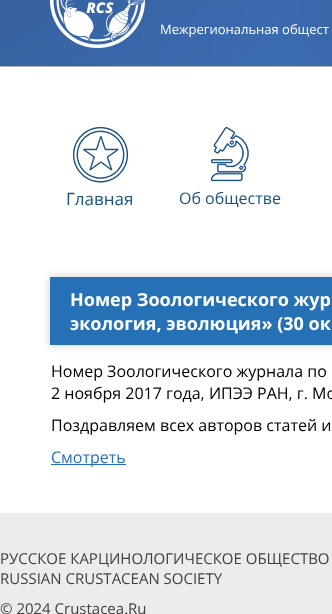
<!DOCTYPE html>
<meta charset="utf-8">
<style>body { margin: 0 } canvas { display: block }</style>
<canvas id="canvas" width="332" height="614"></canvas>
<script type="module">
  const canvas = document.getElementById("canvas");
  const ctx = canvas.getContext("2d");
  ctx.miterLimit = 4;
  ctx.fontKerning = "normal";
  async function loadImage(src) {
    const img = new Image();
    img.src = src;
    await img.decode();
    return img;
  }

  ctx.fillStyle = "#ffffff";
  ctx.fillRect(0, 0, 332, 614);
  ctx.drawImage(await loadImage("img1.png"), 0, 0, 332, 66);
  ctx.fillStyle = "#b2b2b2";
  ctx.fillRect(0, 66, 332, 1);
  ctx.drawImage(await loadImage("img2.png"), 50, 0, 95, 48);
  ctx.font = "13px Open Sans";
  ctx.fillStyle = "#ffffff";
  ctx.fillText("Межрегиональная общест", 160, 34);
  ctx.drawImage(await loadImage("img3.png"), 73, 127, 55, 56);
  ctx.font = "17px Open Sans";
  ctx.fillStyle = "#1c5183";
  ctx.fillText("Главная", 66, 205);
  ctx.drawImage(await loadImage("img4.png"), 211, 127, 38, 55);
  ctx.font = "16px Open Sans";
  ctx.fillText("Об обществе", 179, 204);
  ctx.fillStyle = "#cccccc";
  ctx.filter = "blur(5px)";
  ctx.beginPath();
  ctx.rect(50, 277, 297, 68);
  ctx.fill();
  ctx.filter = "none";
  ctx.fillStyle = "#2670b5";
  ctx.fillRect(50, 277, 282, 68);
  ctx.font = "bold 18px Open Sans";
  ctx.fillStyle = "#ffffff";
  ctx.fillText("Номер Зоологического жур", 70, 306);
  ctx.fillText("экология, эволюция» (30 ок", 70, 330);
  ctx.font = "16px Open Sans";
  ctx.fillStyle = "#000000";
  ctx.fillText("Номер Зоологического журнала по", 51, 377);
  ctx.fillText("2 ноября 2017 года, ИПЭЭ РАН, г. Мо", 51, 399);
  ctx.fillText("Поздравляем всех авторов статей и", 51, 431);
  ctx.fillStyle = "#2670b5";
  ctx.fillRect(51, 464, 75, 1);
  ctx.fillText("Смотреть", 51, 463);
  ctx.fillStyle = "#ececec";
  ctx.fillRect(0, 513, 332, 101);
  ctx.font = "15px Open Sans";
  ctx.fillStyle = "#3f3f3f";
  ctx.fillText("РУССКОЕ КАРЦИНОЛОГИЧЕСКОЕ ОБЩЕСТВО", 0, 564);
  ctx.fillText("RUSSIAN CRUSTACEAN SOCIETY", 0, 584);
  ctx.fillText("© 2024 Crustacea.Ru", 0, 614);
</script>
